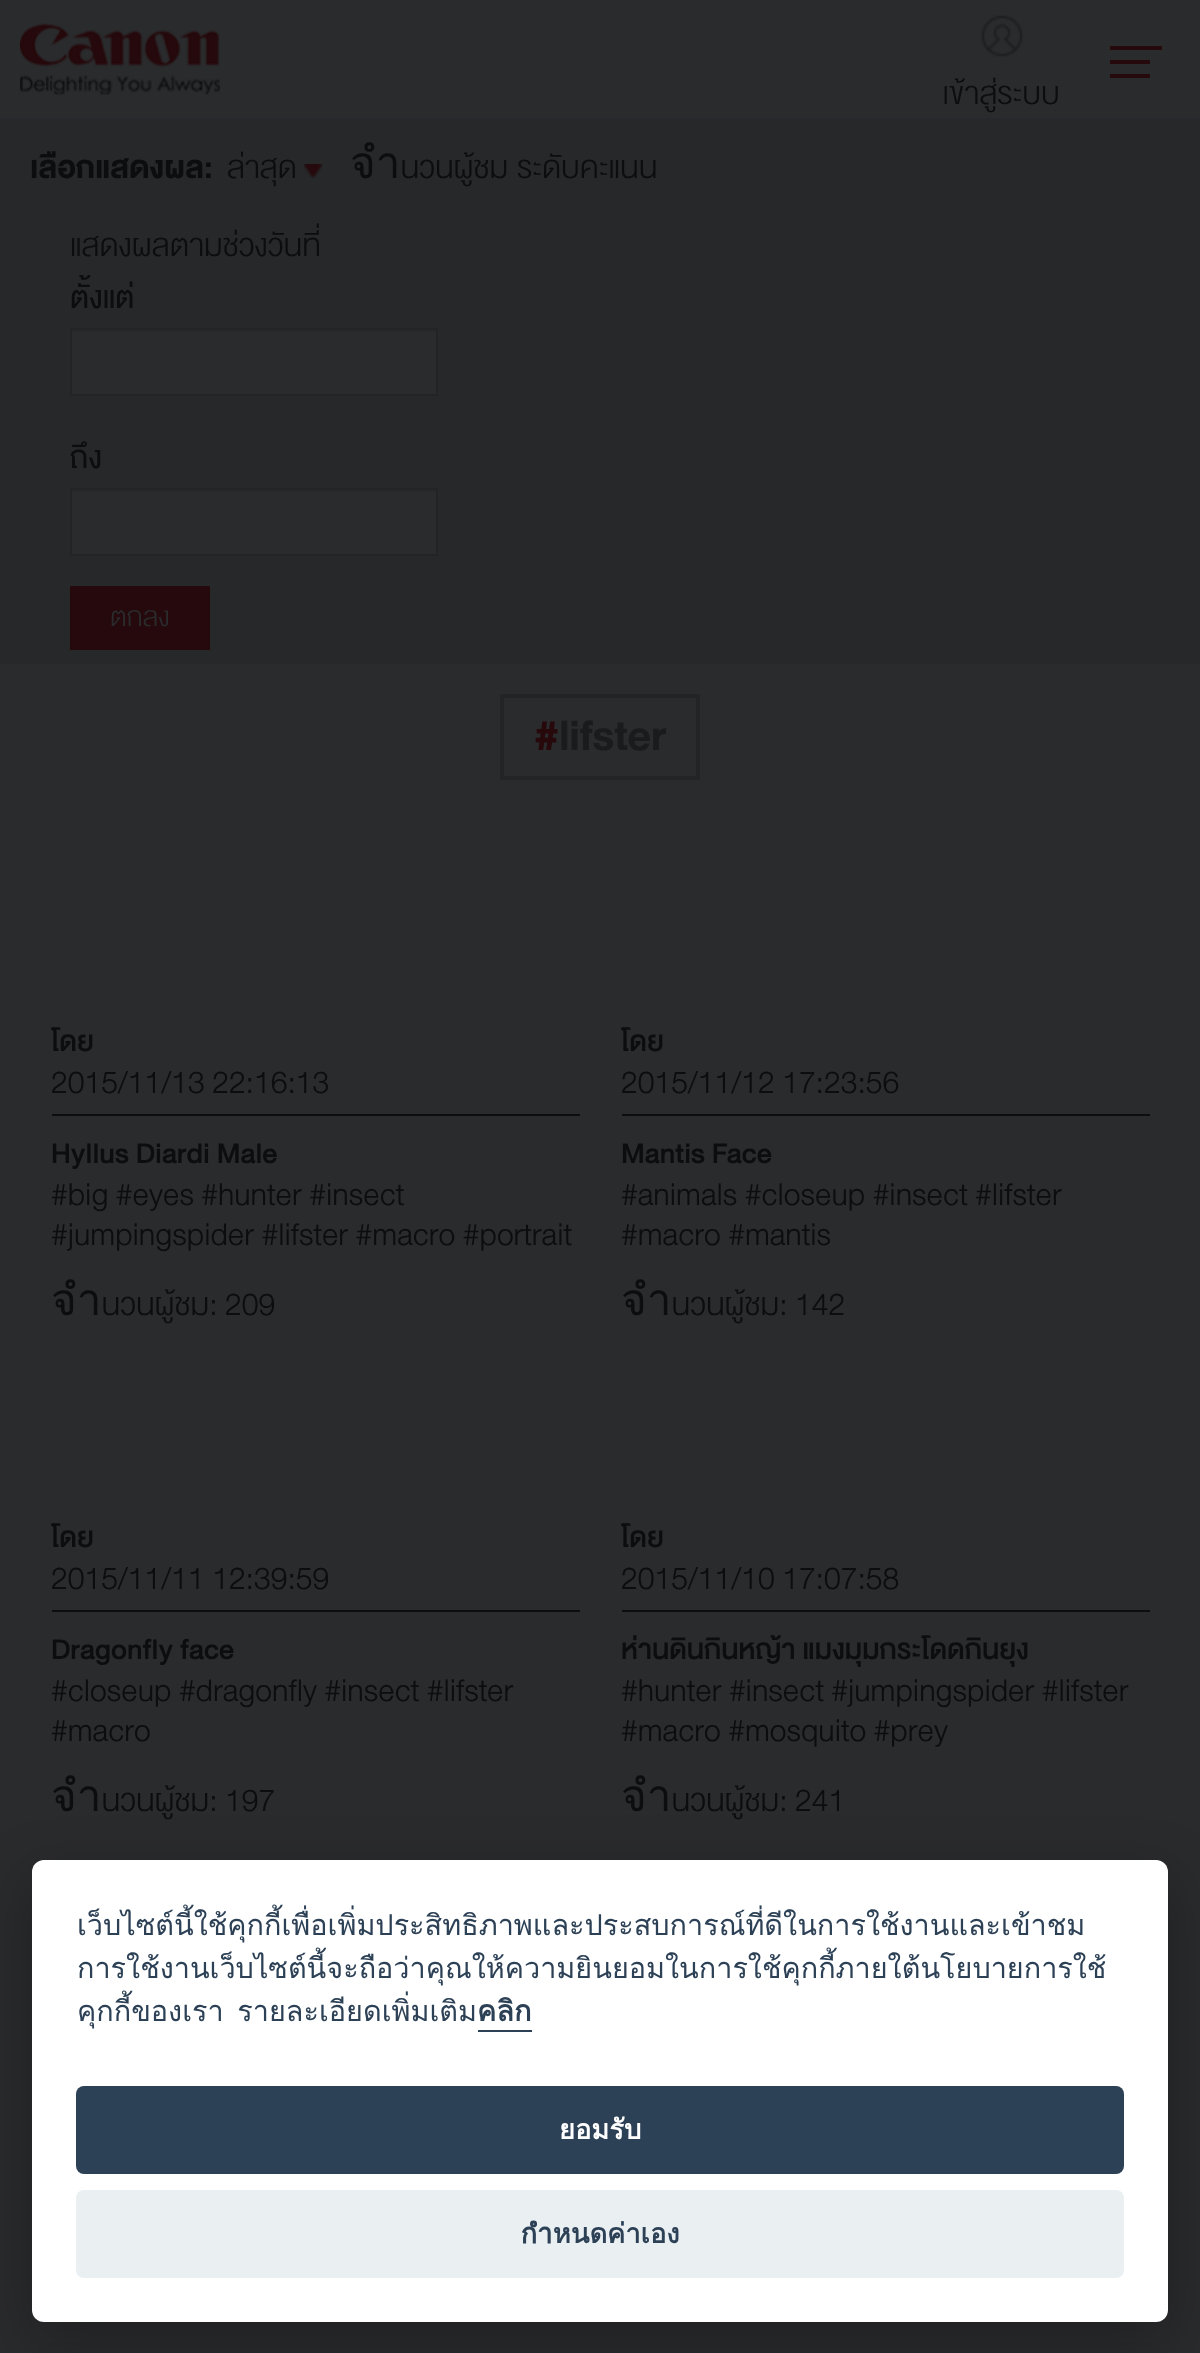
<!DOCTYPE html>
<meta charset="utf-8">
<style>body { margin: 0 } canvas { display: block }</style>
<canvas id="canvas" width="1200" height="2353"></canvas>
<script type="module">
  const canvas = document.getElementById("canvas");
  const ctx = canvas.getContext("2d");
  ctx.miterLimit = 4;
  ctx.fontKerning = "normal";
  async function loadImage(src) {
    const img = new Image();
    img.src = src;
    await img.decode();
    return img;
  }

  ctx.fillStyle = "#2a2b2d";
  ctx.fillRect(0, 0, 1200, 2353);
  ctx.fillStyle = "#27282b";
  ctx.fillRect(0, 118, 1200, 2);
  ctx.drawImage(await loadImage("img1.png"), 20, 23, 200, 72);
  ctx.fillStyle = "#25090c";
  ctx.fillRect(1110, 60, 40, 4);
  ctx.fillRect(1110, 46, 52, 4);
  ctx.fillRect(1110, 74, 40, 4);
  ctx.drawImage(await loadImage("img2.png"), 981, 15, 42, 42);
  ctx.font = "300 44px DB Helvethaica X";
  ctx.fillStyle = "#0c0d0f";
  ctx.fillText("เข้าสู่ระบบ", 942, 104);
  ctx.fillStyle = "#262829";
  ctx.fillRect(0, 120, 1200, 544);
  ctx.font = "bold 44px DB Helvethaica X";
  ctx.fillStyle = "#0c0d0f";
  ctx.fillText("เลือกแสดงผล:", 30, 178);
  ctx.font = "300 44px DB Helvethaica X";
  ctx.fillText("ล่าสุด", 227, 178);
  ctx.drawImage(await loadImage("img3.png"), 304, 164, 18, 14);
  ctx.fillText("จำนวนผู้ชม", 350, 178);
  ctx.fillText("ระดับคะแนน", 517, 178);
  ctx.fillText("แสดงผลตามช่วงวันที่", 70, 256);
  ctx.font = "44px DB Helvethaica X";
  ctx.fillText("ตั้งแต่", 70, 308);
  ctx.fillStyle = "#2a2b2d";
  ctx.fillRect(72, 332, 364, 62);
  ctx.strokeStyle = "#222425";
  ctx.lineWidth = 2;
  ctx.strokeRect(71, 329, 366, 66);
  ctx.fillStyle = "#0c0d0f";
  ctx.fillText("ถึง", 70, 468);
  ctx.fillStyle = "#2a2b2d";
  ctx.fillRect(72, 492, 364, 62);
  ctx.strokeRect(71, 489, 366, 66);
  ctx.fillStyle = "#25090c";
  ctx.fillRect(70, 586, 140, 64);
  ctx.font = "300 38px DB Helvethaica X";
  ctx.fillStyle = "#2a2b2d";
  ctx.fillText("ตกลง", 110, 626);
  ctx.lineWidth = 4;
  ctx.strokeRect(502, 696, 196, 82);
  ctx.font = "bold 60px DB Helvethaica X";
  ctx.fillStyle = "#27090c";
  ctx.fillText("#", 534, 750);
  ctx.fillStyle = "#1a1b1d";
  ctx.fillText("lifster", 559, 750);
  ctx.fillStyle = "#0b0d0e";
  ctx.fillRect(52, 1114, 528, 2);
  ctx.font = "500 40px DB Helvethaica X";
  ctx.fillStyle = "#0c0d0f";
  ctx.fillText("โดย", 51, 1051);
  ctx.font = "300 44px DB Helvethaica X";
  ctx.fillText("2015/11/13 22:16:13", 51, 1093);
  ctx.font = "500 40px DB Helvethaica X";
  ctx.fillText("Hyllus Diardi Male", 51, 1163);
  ctx.font = "300 44px DB Helvethaica X";
  ctx.fillText("#big #eyes #hunter #insect", 51, 1205);
  ctx.fillText("#jumpingspider #lifster #macro #portrait", 51, 1245);
  ctx.fillText("จำนวนผู้ชม: 209", 51, 1315);
  ctx.fillStyle = "#0b0d0e";
  ctx.fillRect(622, 1114, 528, 2);
  ctx.font = "500 40px DB Helvethaica X";
  ctx.fillStyle = "#0c0d0f";
  ctx.fillText("โดย", 621, 1051);
  ctx.font = "300 44px DB Helvethaica X";
  ctx.fillText("2015/11/12 17:23:56", 621, 1093);
  ctx.font = "500 40px DB Helvethaica X";
  ctx.fillText("Mantis Face", 621, 1163);
  ctx.font = "300 44px DB Helvethaica X";
  ctx.fillText("#animals #closeup #insect #lifster", 621, 1205);
  ctx.fillText("#macro #mantis", 621, 1245);
  ctx.fillText("จำนวนผู้ชม: 142", 621, 1315);
  ctx.fillStyle = "#0b0d0e";
  ctx.fillRect(52, 1610, 528, 2);
  ctx.font = "500 40px DB Helvethaica X";
  ctx.fillStyle = "#0c0d0f";
  ctx.fillText("โดย", 51, 1547);
  ctx.font = "300 44px DB Helvethaica X";
  ctx.fillText("2015/11/11 12:39:59", 51, 1589);
  ctx.font = "500 40px DB Helvethaica X";
  ctx.fillText("Dragonfly face", 51, 1659);
  ctx.font = "300 44px DB Helvethaica X";
  ctx.fillText("#closeup #dragonfly #insect #lifster", 51, 1701);
  ctx.fillText("#macro", 51, 1741);
  ctx.fillText("จำนวนผู้ชม: 197", 51, 1811);
  ctx.fillStyle = "#0b0d0e";
  ctx.fillRect(622, 1610, 528, 2);
  ctx.font = "500 40px DB Helvethaica X";
  ctx.fillStyle = "#0c0d0f";
  ctx.fillText("โดย", 621, 1547);
  ctx.font = "300 44px DB Helvethaica X";
  ctx.fillText("2015/11/10 17:07:58", 621, 1589);
  ctx.font = "500 40px DB Helvethaica X";
  ctx.fillText("ห่านดินกินหญ้า แมงมุมกระโดดกินยุง", 621, 1659);
  ctx.font = "300 44px DB Helvethaica X";
  ctx.fillText("#hunter #insect #jumpingspider #lifster", 621, 1701);
  ctx.fillText("#macro #mosquito #prey", 621, 1741);
  ctx.fillText("จำนวนผู้ชม: 241", 621, 1811);
  ctx.fillStyle = "rgba(2, 2, 3, 0.28)";
  ctx.filter = "blur(30px)";
  ctx.beginPath();
  ctx.roundRect(32, 1880, 1136, 462, 12);
  ctx.fill();
  ctx.filter = "none";
  ctx.fillStyle = "#ffffff";
  ctx.beginPath();
  ctx.roundRect(32, 1860, 1136, 462, 12);
  ctx.fill();
  ctx.font = "28.8px Loma";
  ctx.fillStyle = "#2d4156";
  ctx.fillText("เว็บไซต์นี้ใช้คุกกี้เพื่อเพิ่มประสิทธิภาพและประสบการณ์ที่ดีในการใช้งานและเข้าชม", 77, 1935);
  ctx.fillText("การใช้งานเว็บไซต์นี้จะถือว่าคุณให้ความยินยอมในการใช้คุกกี้ภายใต้นโยบายการใช้", 77, 1978);
  ctx.wordSpacing = "4px";
  ctx.fillText("คุกกี้ของเรา รายละเอียดเพิ่มเติม", 77, 2021);
  ctx.wordSpacing = "0px";
  ctx.font = "bold 28.8px Loma";
  ctx.fillText("คลิก", 477, 2021);
  ctx.fillRect(478, 2030, 54, 2);
  ctx.beginPath();
  ctx.roundRect(76, 2086, 1048, 88, 8);
  ctx.fill();
  ctx.font = "bold 27.25px Loma";
  ctx.fillStyle = "#ffffff";
  ctx.fillText("ยอมรับ", 559, 2139);
  ctx.fillStyle = "#eaeff2";
  ctx.beginPath();
  ctx.roundRect(76, 2190, 1048, 88, 8);
  ctx.fill();
  ctx.fillStyle = "#2d4156";
  ctx.fillText("กำหนดค่าเอง", 521, 2243);
</script>
